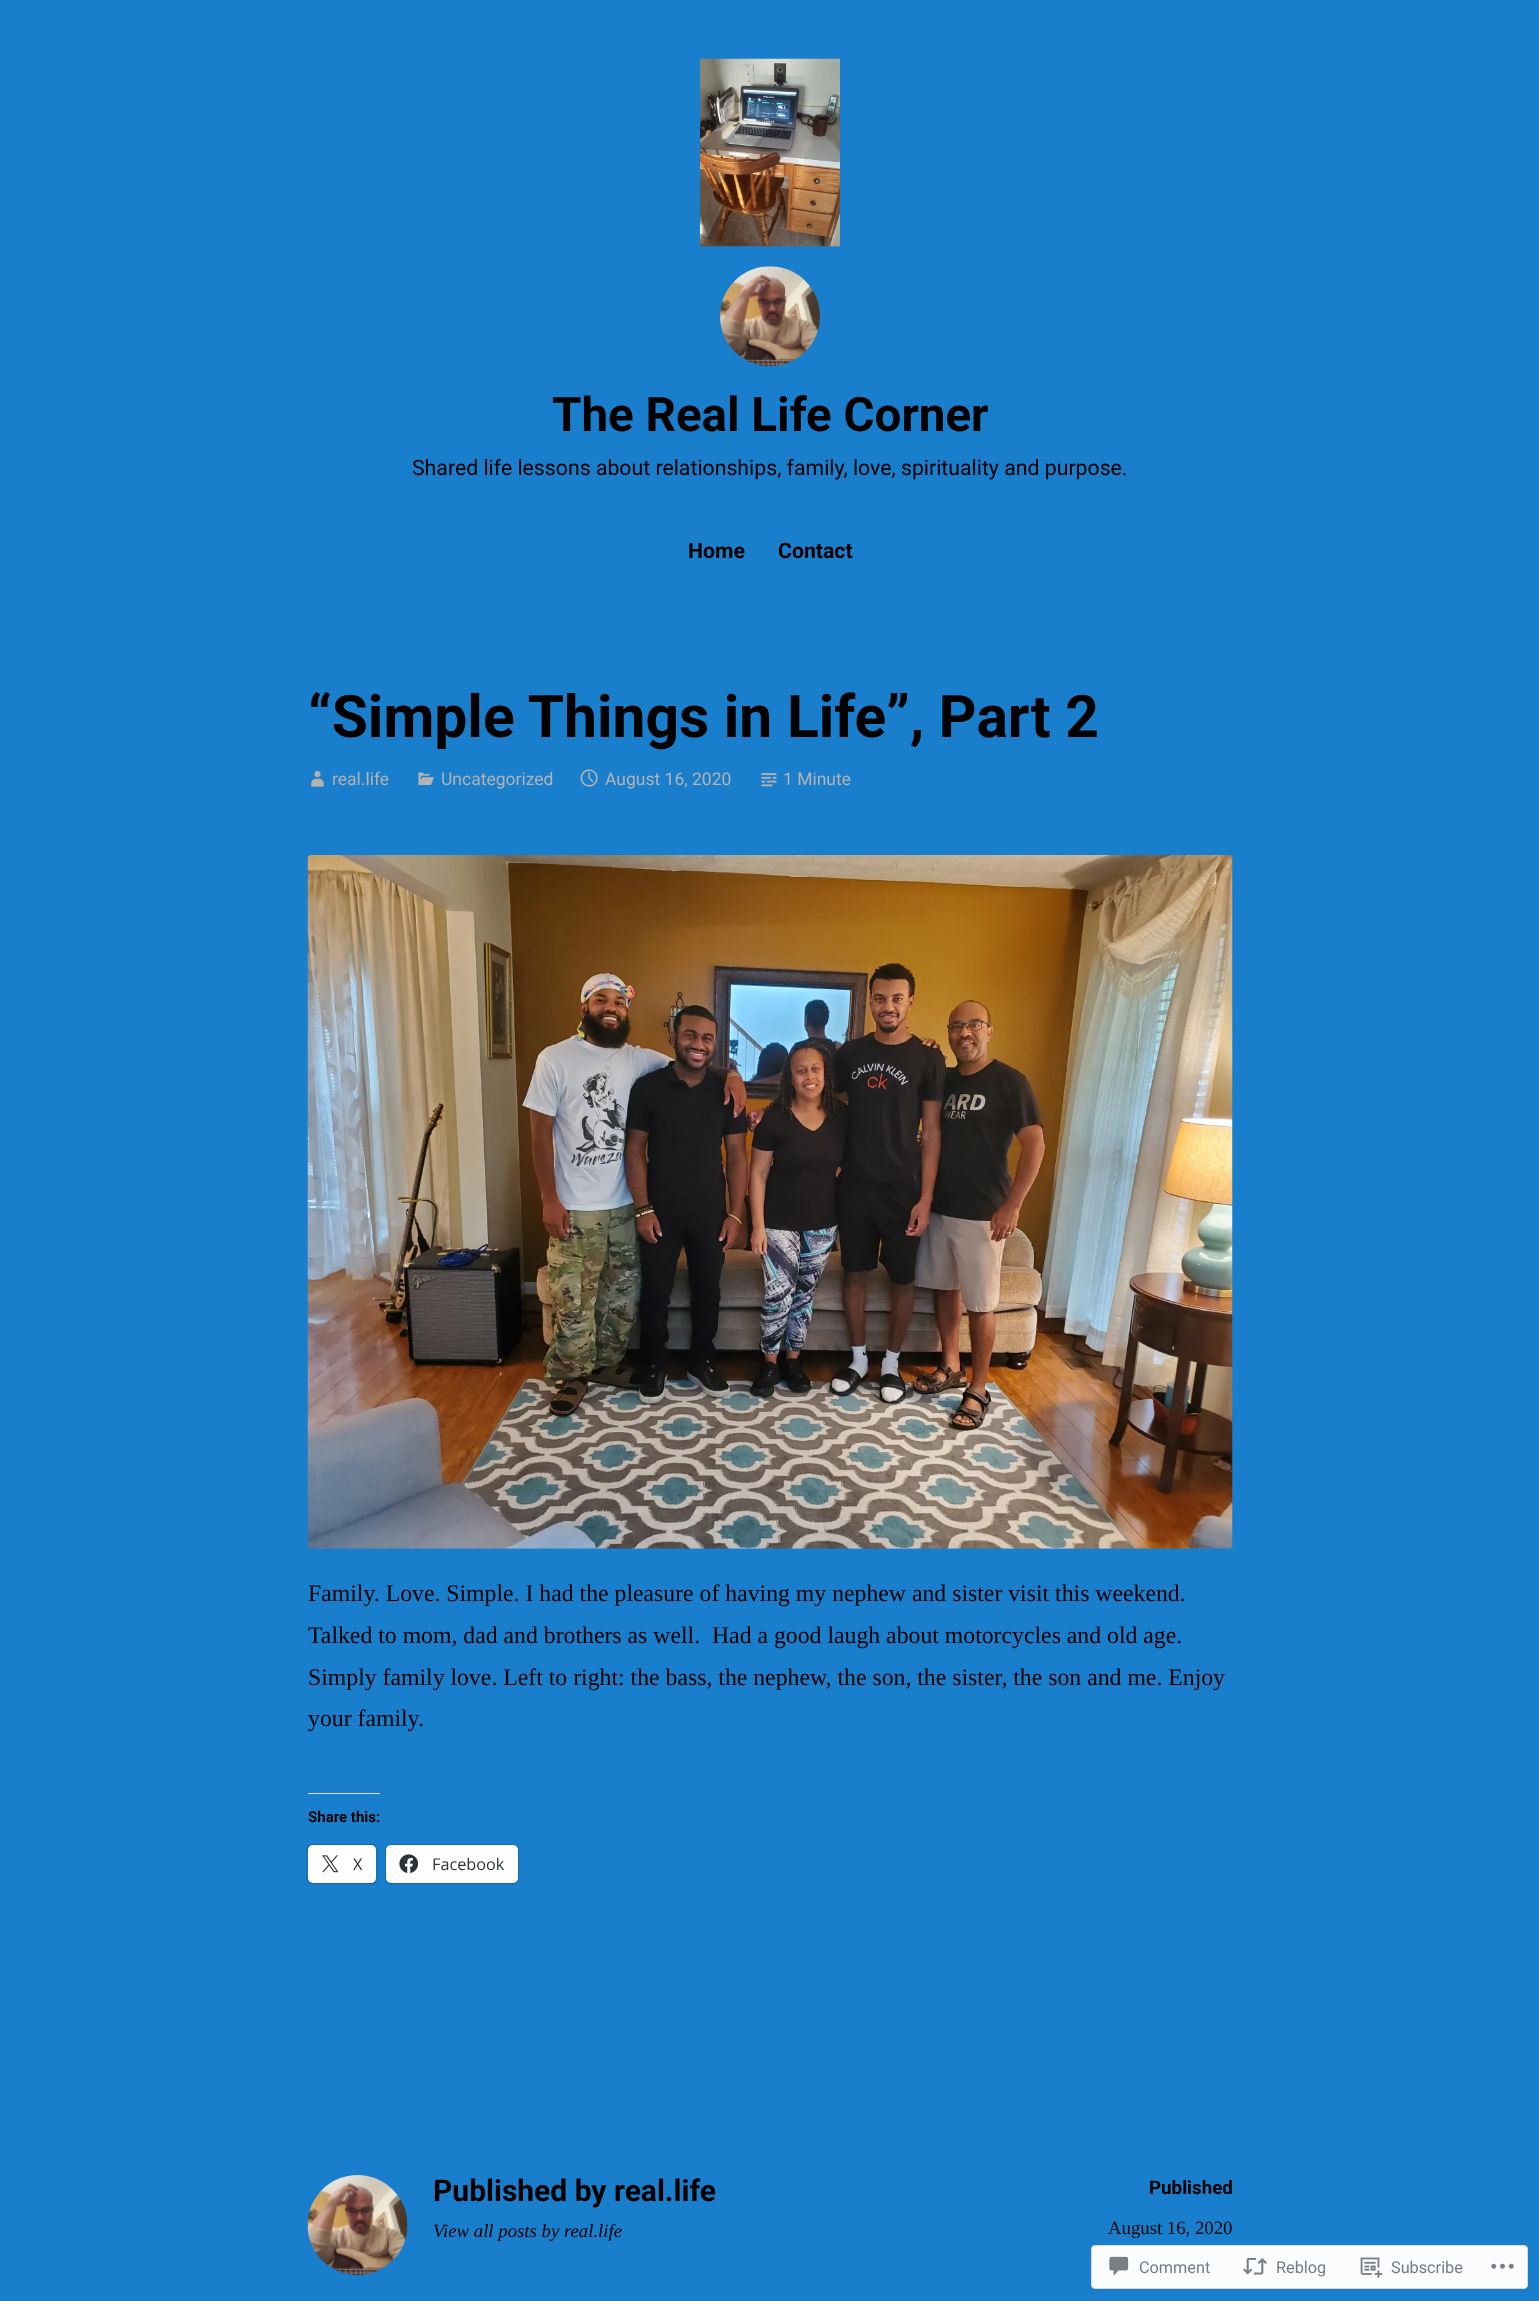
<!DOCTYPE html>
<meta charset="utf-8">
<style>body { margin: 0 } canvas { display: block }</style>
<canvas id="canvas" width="1539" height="2301"></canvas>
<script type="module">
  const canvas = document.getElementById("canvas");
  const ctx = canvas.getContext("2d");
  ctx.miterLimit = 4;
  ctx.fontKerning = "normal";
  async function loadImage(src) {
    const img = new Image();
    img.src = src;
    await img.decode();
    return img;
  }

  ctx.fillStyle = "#197ecc";
  ctx.fillRect(0, 0, 1539, 2301);
  ctx.drawImage(await loadImage("img1.png"), 700, 58, 140, 189);
  ctx.drawImage(await loadImage("img2.png"), 720, 266, 100, 101);
  ctx.font = "bold 47.5px Roboto";
  ctx.fillStyle = "#000000";
  ctx.fillText("The Real Life Corner", 552, 431);
  ctx.font = "21.25px Roboto";
  ctx.fillText("Shared life lessons about relationships, family, love, spirituality and purpose.", 412, 475);
  ctx.font = "bold 21.25px Roboto";
  ctx.fillText("Home", 688, 558);
  ctx.fillText("Contact", 778, 558);
  ctx.font = "bold 58.75px Roboto";
  ctx.fillText("“Simple Things in Life”, Part 2", 308, 737);
  ctx.drawImage(await loadImage("img3.png"), 311, 771, 13, 16);
  ctx.font = "17.5px Roboto";
  ctx.fillStyle = "#b3b3b1";
  ctx.fillText("real.life", 332, 785);
  ctx.drawImage(await loadImage("img4.png"), 418, 772, 16, 13);
  ctx.fillText("Uncategorized", 441, 785);
  ctx.drawImage(await loadImage("img5.png"), 580, 769, 18, 18);
  ctx.fillText("August 16, 2020", 605, 785);
  ctx.drawImage(await loadImage("img6.png"), 761, 773, 16, 14);
  ctx.fillText("1 Minute", 783, 785);
  ctx.drawImage(await loadImage("img7.png"), 307, 855, 926, 694);
  ctx.font = "23.75px Liberation Serif";
  ctx.fillStyle = "#000000";
  ctx.fillText("Family. Love. Simple. I had the pleasure of having my nephew and sister visit this weekend.", 308, 1601);
  ctx.fillText("Talked to mom, dad and brothers as well.  Had a good laugh about motorcycles and old age.", 308, 1643);
  ctx.fillText("Simply family love. Left to right: the bass, the nephew, the son, the sister, the son and me. Enjoy", 308, 1685);
  ctx.fillText("your family.", 308, 1726);
  ctx.fillStyle = "#dcdcde";
  ctx.fillRect(308, 1793, 72, 1);
  ctx.font = "bold 15px Roboto";
  ctx.fillStyle = "#000000";
  ctx.fillText("Share this:", 308, 1822);
  ctx.beginPath();
  ctx.roundRect(306.5, 1844.5, 71, 39, 5.5);
  ctx.strokeStyle = "#166fb4";
  ctx.stroke();
  ctx.fillStyle = "rgba(0, 0, 0, 0.12)";
  ctx.filter = "blur(1px)";
  ctx.beginPath();
  ctx.roundRect(308, 1846, 68, 38, 5);
  ctx.fill();
  ctx.filter = "none";
  ctx.fillStyle = "#ffffff";
  ctx.beginPath();
  ctx.roundRect(308, 1845, 68, 38, 5);
  ctx.fill();
  ctx.drawImage(await loadImage("img8.png"), 322, 1855, 17, 18);
  ctx.font = "16.25px Open Sans";
  ctx.fillStyle = "#2c3338";
  ctx.fillText("X", 353, 1870);
  ctx.beginPath();
  ctx.roundRect(385.5, 1844.5, 133, 39, 5.5);
  ctx.stroke();
  ctx.fillStyle = "rgba(0, 0, 0, 0.12)";
  ctx.filter = "blur(1px)";
  ctx.beginPath();
  ctx.roundRect(386, 1846, 132, 38, 5);
  ctx.fill();
  ctx.filter = "none";
  ctx.fillStyle = "#ffffff";
  ctx.beginPath();
  ctx.roundRect(386, 1845, 132, 38, 5);
  ctx.fill();
  ctx.drawImage(await loadImage("img9.png"), 399, 1854, 20, 19);
  ctx.fillStyle = "#2c3338";
  ctx.fillText("Facebook", 432, 1870);
  ctx.drawImage(await loadImage("img10.png"), 307, 2175, 101, 100);
  ctx.font = "bold 30px Roboto";
  ctx.fillStyle = "#000000";
  ctx.fillText("Published by real.life", 433, 2201);
  ctx.font = "italic 18.75px Liberation Serif";
  ctx.fillText("View all posts by real.life", 433, 2237);
  ctx.font = "bold 18.75px Roboto";
  ctx.fillText("Published", 1149, 2194);
  ctx.font = "18.75px Liberation Serif";
  ctx.fillText("August 16, 2020", 1108, 2234);
  ctx.fillStyle = "#fafcfe";
  ctx.beginPath();
  ctx.roundRect(1091.5, 2245.5, 436, 43, 3.5);
  ctx.fill();
  ctx.strokeStyle = "#d8dade";
  ctx.stroke();
  ctx.drawImage(await loadImage("img11.png"), 1109, 2256, 20, 20);
  ctx.font = "16.25px Roboto";
  ctx.fillStyle = "#767c83";
  ctx.fillText("Comment", 1139, 2273);
  ctx.drawImage(await loadImage("img12.png"), 1243, 2257, 24, 18);
  ctx.fillText("Reblog", 1276, 2273);
  ctx.drawImage(await loadImage("img13.png"), 1360, 2257, 23, 21);
  ctx.fillText("Subscribe", 1391, 2273);
  ctx.drawImage(await loadImage("img14.png"), 1491, 2263, 23, 6);
</script>
